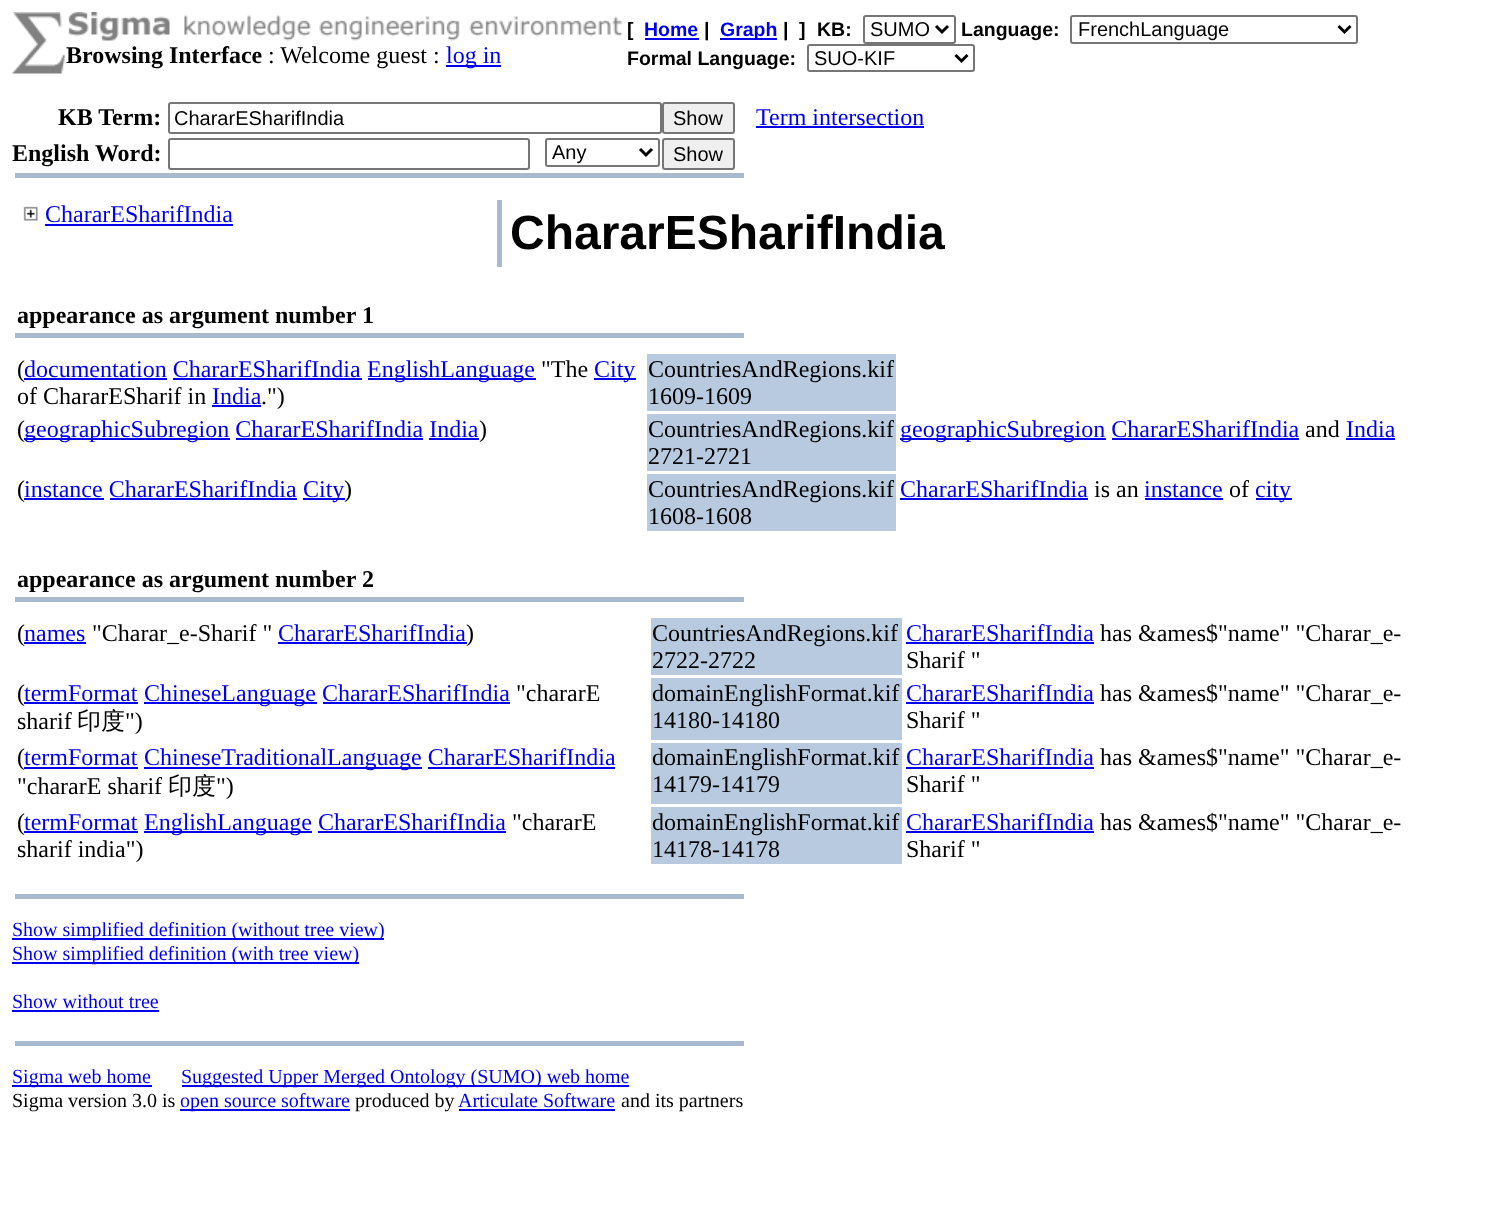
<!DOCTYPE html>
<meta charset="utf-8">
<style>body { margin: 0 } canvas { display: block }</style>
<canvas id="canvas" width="1494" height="1210"></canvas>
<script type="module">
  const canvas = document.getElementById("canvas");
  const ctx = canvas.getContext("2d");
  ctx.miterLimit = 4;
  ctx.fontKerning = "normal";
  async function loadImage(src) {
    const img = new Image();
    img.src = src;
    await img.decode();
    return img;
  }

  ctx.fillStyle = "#ffffff";
  ctx.fillRect(0, 0, 1494, 1210);
  ctx.drawImage(await loadImage("img1.png"), 12, 12, 54, 62);
  ctx.drawImage(await loadImage("img2.png"), 68, 12, 555, 29);
  ctx.font = "bold 24px Liberation Serif";
  ctx.fillStyle = "#000000";
  ctx.fillText("Browsing Interface", 66, 63);
  ctx.font = "24px Liberation Serif";
  ctx.fillText(": Welcome guest :", 268, 63);
  ctx.fillStyle = "#0000ee";
  ctx.fillRect(446, 65, 55, 2);
  ctx.fillText("log in", 446, 63);
  ctx.font = "bold 19.5px Liberation Sans";
  ctx.fillStyle = "#000000";
  ctx.fillText("[", 627, 36);
  ctx.fillStyle = "#0000ee";
  ctx.fillText("Home", 644, 36);
  ctx.fillRect(645, 38, 54, 2);
  ctx.fillStyle = "#000000";
  ctx.fillText("|", 704, 36);
  ctx.fillStyle = "#0000ee";
  ctx.fillRect(720, 38, 57, 2);
  ctx.fillText("Graph", 720, 36);
  ctx.fillStyle = "#000000";
  ctx.fillText("|", 783, 36);
  ctx.fillText("]", 799, 36);
  ctx.fillText("KB:", 817, 36);
  ctx.beginPath();
  ctx.roundRect(864, 16, 91, 27, 2);
  ctx.strokeStyle = "#767676";
  ctx.lineWidth = 2;
  ctx.stroke();
  ctx.beginPath();
  ctx.moveTo(936, 26);
  ctx.lineTo(942, 32);
  ctx.lineTo(948, 26);
  ctx.strokeStyle = "#000000";
  ctx.lineWidth = 3;
  ctx.stroke();
  ctx.font = "20px Liberation Sans";
  ctx.fillText("SUMO", 870, 36);
  ctx.font = "bold 19.5px Liberation Sans";
  ctx.fillText("Language:", 961, 36);
  ctx.beginPath();
  ctx.roundRect(1071, 16, 286, 27, 2);
  ctx.strokeStyle = "#767676";
  ctx.lineWidth = 2;
  ctx.stroke();
  ctx.beginPath();
  ctx.moveTo(1338.5, 26);
  ctx.lineTo(1344.5, 32);
  ctx.lineTo(1350.5, 26);
  ctx.strokeStyle = "#000000";
  ctx.lineWidth = 3;
  ctx.stroke();
  ctx.font = "20px Liberation Sans";
  ctx.fillText("FrenchLanguage", 1078, 36);
  ctx.font = "bold 19.5px Liberation Sans";
  ctx.fillText("Formal Language:", 627, 65);
  ctx.beginPath();
  ctx.roundRect(808, 45, 166, 26, 2);
  ctx.strokeStyle = "#767676";
  ctx.lineWidth = 2;
  ctx.stroke();
  ctx.beginPath();
  ctx.moveTo(955.5, 55);
  ctx.lineTo(961.5, 61);
  ctx.lineTo(967.5, 55);
  ctx.strokeStyle = "#000000";
  ctx.lineWidth = 3;
  ctx.stroke();
  ctx.font = "20px Liberation Sans";
  ctx.fillText("SUO-KIF", 814, 65);
  ctx.font = "bold 24px Liberation Serif";
  ctx.fillText("KB Term:", 58, 125);
  ctx.beginPath();
  ctx.roundRect(169, 103, 492, 30, 2);
  ctx.strokeStyle = "#767676";
  ctx.lineWidth = 2;
  ctx.stroke();
  ctx.font = "20px Liberation Sans";
  ctx.fillText("ChararESharifIndia", 174, 125);
  ctx.fillStyle = "#efefef";
  ctx.beginPath();
  ctx.roundRect(663, 103, 71, 30, 2);
  ctx.fill();
  ctx.stroke();
  ctx.fillStyle = "#000000";
  ctx.fillText("Show", 673, 125);
  ctx.font = "24px Liberation Serif";
  ctx.fillStyle = "#0000ee";
  ctx.fillText("Term intersection", 756, 125);
  ctx.fillRect(756, 126, 168, 2);
  ctx.font = "bold 24px Liberation Serif";
  ctx.fillStyle = "#000000";
  ctx.fillText("English Word:", 12, 161);
  ctx.beginPath();
  ctx.roundRect(169, 139, 360, 30, 2);
  ctx.stroke();
  ctx.beginPath();
  ctx.roundRect(546, 139, 113, 27, 2);
  ctx.stroke();
  ctx.beginPath();
  ctx.moveTo(640, 149);
  ctx.lineTo(646, 155);
  ctx.lineTo(652, 149);
  ctx.strokeStyle = "#000000";
  ctx.lineWidth = 3;
  ctx.stroke();
  ctx.font = "20px Liberation Sans";
  ctx.fillText("Any", 552, 159);
  ctx.fillStyle = "#efefef";
  ctx.beginPath();
  ctx.roundRect(663, 139, 71, 30, 2);
  ctx.fill();
  ctx.strokeStyle = "#767676";
  ctx.lineWidth = 2;
  ctx.stroke();
  ctx.fillStyle = "#000000";
  ctx.fillText("Show", 673, 161);
  ctx.fillStyle = "#a8bacf";
  ctx.fillRect(15, 173, 729, 5);
  ctx.drawImage(await loadImage("img3.png"), 23, 206, 15, 15);
  ctx.font = "24px Liberation Serif";
  ctx.fillStyle = "#0000ee";
  ctx.fillText("ChararESharifIndia", 45, 222);
  ctx.fillRect(45, 224, 188, 2);
  ctx.fillStyle = "#a8bacf";
  ctx.fillRect(497, 200, 5, 67);
  ctx.font = "bold 48px Liberation Sans";
  ctx.fillStyle = "#000000";
  ctx.fillText("ChararESharifIndia", 510, 249);
  ctx.font = "bold 24px Liberation Serif";
  ctx.fillText("appearance as argument number 1", 17, 323);
  ctx.fillStyle = "#a8bacf";
  ctx.fillRect(15, 333, 729, 5);
  ctx.font = "24px Liberation Serif";
  ctx.fillStyle = "#000000";
  ctx.fillText("(", 17, 377);
  ctx.fillStyle = "#0000ee";
  ctx.fillText("documentation ChararESharifIndia", 24, 377);
  ctx.fillRect(24, 378, 143, 2);
  ctx.fillRect(368, 378, 168, 2);
  ctx.fillText("EnglishLanguage", 367, 377);
  ctx.fillStyle = "#000000";
  ctx.fillText("\"The", 541, 377);
  ctx.fillStyle = "#0000ee";
  ctx.fillRect(594, 378, 42, 2);
  ctx.fillText("City", 594, 377);
  ctx.fillRect(173, 378, 189, 2);
  ctx.fillStyle = "#000000";
  ctx.fillText("of ChararESharif in", 17, 404);
  ctx.fillStyle = "#0000ee";
  ctx.fillText("India", 212, 404);
  ctx.fillRect(212, 405, 49, 2);
  ctx.fillStyle = "#000000";
  ctx.fillText(".\")", 261, 404);
  ctx.fillStyle = "#b8cadf";
  ctx.fillRect(647, 354, 249, 57);
  ctx.fillStyle = "#000000";
  ctx.fillText("CountriesAndRegions.kif", 648, 377);
  ctx.fillText("1609-1609", 648, 404);
  ctx.fillText("(", 17, 437);
  ctx.fillStyle = "#0000ee";
  ctx.fillRect(24, 438, 206, 2);
  ctx.fillText("geographicSubregion ChararESharifIndia India", 24, 437);
  ctx.fillStyle = "#000000";
  ctx.fillText(")", 479, 437);
  ctx.fillStyle = "#0000ee";
  ctx.fillRect(236, 438, 187, 2);
  ctx.fillRect(429, 438, 50, 2);
  ctx.fillStyle = "#b8cadf";
  ctx.fillRect(647, 414, 249, 57);
  ctx.fillStyle = "#000000";
  ctx.fillText("CountriesAndRegions.kif", 648, 437);
  ctx.fillText("2721-2721", 648, 464);
  ctx.fillStyle = "#0000ee";
  ctx.fillRect(900, 438, 206, 2);
  ctx.fillText("geographicSubregion ChararESharifIndia", 900, 437);
  ctx.fillStyle = "#000000";
  ctx.fillText("and", 1305, 437);
  ctx.fillStyle = "#0000ee";
  ctx.fillText("India", 1346, 437);
  ctx.fillRect(1346, 438, 49, 2);
  ctx.fillRect(1112, 438, 187, 2);
  ctx.fillStyle = "#000000";
  ctx.fillText("(", 17, 497);
  ctx.fillStyle = "#0000ee";
  ctx.fillText("instance ChararESharifIndia", 24, 497);
  ctx.fillRect(24, 498, 80, 2);
  ctx.fillRect(303, 498, 42, 2);
  ctx.fillText("City", 303, 497);
  ctx.fillStyle = "#000000";
  ctx.fillText(")", 344, 497);
  ctx.fillStyle = "#0000ee";
  ctx.fillRect(110, 498, 187, 2);
  ctx.fillStyle = "#b8cadf";
  ctx.fillRect(647, 474, 249, 57);
  ctx.fillStyle = "#000000";
  ctx.fillText("CountriesAndRegions.kif", 648, 497);
  ctx.fillText("1608-1608", 648, 524);
  ctx.fillStyle = "#0000ee";
  ctx.fillText("ChararESharifIndia", 900, 497);
  ctx.fillRect(900, 498, 188, 2);
  ctx.fillStyle = "#000000";
  ctx.fillText("is an", 1094, 497);
  ctx.fillStyle = "#0000ee";
  ctx.fillText("instance", 1144, 497);
  ctx.fillRect(1145, 498, 78, 2);
  ctx.fillStyle = "#000000";
  ctx.fillText("of", 1229, 497);
  ctx.fillStyle = "#0000ee";
  ctx.fillRect(1256, 498, 36, 2);
  ctx.fillText("city", 1255, 497);
  ctx.font = "bold 24px Liberation Serif";
  ctx.fillStyle = "#000000";
  ctx.fillText("appearance as argument number 2", 17, 587);
  ctx.fillStyle = "#a8bacf";
  ctx.fillRect(15, 597, 729, 5);
  ctx.font = "24px Liberation Serif";
  ctx.fillStyle = "#000000";
  ctx.fillText("(", 17, 641);
  ctx.fillStyle = "#0000ee";
  ctx.fillText("names", 24, 641);
  ctx.fillRect(24, 642, 62, 2);
  ctx.fillStyle = "#000000";
  ctx.fillText("\"Charar_e-Sharif \"", 92, 641);
  ctx.fillStyle = "#0000ee";
  ctx.fillText("ChararESharifIndia", 278, 641);
  ctx.fillRect(278, 642, 189, 2);
  ctx.fillStyle = "#000000";
  ctx.fillText(")", 466, 641);
  ctx.fillStyle = "#b8cadf";
  ctx.fillRect(651, 618, 251, 57);
  ctx.fillStyle = "#000000";
  ctx.fillText("CountriesAndRegions.kif", 652, 641);
  ctx.fillText("2722-2722", 652, 668);
  ctx.fillStyle = "#0000ee";
  ctx.fillText("ChararESharifIndia", 906, 641);
  ctx.fillRect(906, 642, 188, 2);
  ctx.fillStyle = "#000000";
  ctx.fillText("has &ames$\"name\" \"Charar_e-", 1100, 641);
  ctx.fillText("Sharif \"", 906, 668);
  ctx.fillText("(", 17, 701);
  ctx.fillStyle = "#0000ee";
  ctx.fillText("termFormat", 24, 701);
  ctx.fillRect(24, 702, 114, 2);
  ctx.fillRect(144, 702, 173, 2);
  ctx.fillText("ChineseLanguage ChararESharifIndia", 144, 701);
  ctx.fillStyle = "#000000";
  ctx.fillText("\"chararE", 516, 701);
  ctx.fillStyle = "#0000ee";
  ctx.fillRect(323, 702, 187, 2);
  ctx.fillStyle = "#000000";
  ctx.fillText("sharif", 17, 729);
  ctx.font = "500 24px WenQuanYi Zen Hei";
  ctx.fillText("印度", 77, 729);
  ctx.font = "24px Liberation Serif";
  ctx.fillText("\")", 125, 729);
  ctx.fillStyle = "#b8cadf";
  ctx.fillRect(651, 678, 251, 62);
  ctx.fillStyle = "#000000";
  ctx.fillText("domainEnglishFormat.kif", 652, 701);
  ctx.fillText("14180-14180", 652, 728);
  ctx.fillStyle = "#0000ee";
  ctx.fillText("ChararESharifIndia", 906, 701);
  ctx.fillRect(906, 702, 188, 2);
  ctx.fillStyle = "#000000";
  ctx.fillText("has &ames$\"name\" \"Charar_e-", 1100, 701);
  ctx.fillText("Sharif \"", 906, 728);
  ctx.fillText("(", 17, 765);
  ctx.fillStyle = "#0000ee";
  ctx.fillText("termFormat", 24, 765);
  ctx.fillRect(24, 767, 114, 2);
  ctx.fillRect(144, 767, 278, 2);
  ctx.fillText("ChineseTraditionalLanguage ChararESharifIndia", 144, 765);
  ctx.fillRect(428, 767, 187, 2);
  ctx.fillStyle = "#000000";
  ctx.fillText("\"chararE sharif", 17, 794);
  ctx.font = "500 24px WenQuanYi Zen Hei";
  ctx.fillText("印度", 168, 794);
  ctx.font = "24px Liberation Serif";
  ctx.fillText("\")", 216, 794);
  ctx.fillStyle = "#b8cadf";
  ctx.fillRect(651, 743, 251, 61);
  ctx.fillStyle = "#000000";
  ctx.fillText("domainEnglishFormat.kif", 652, 765);
  ctx.fillText("14179-14179", 652, 792);
  ctx.fillStyle = "#0000ee";
  ctx.fillText("ChararESharifIndia", 906, 765);
  ctx.fillRect(906, 767, 188, 2);
  ctx.fillStyle = "#000000";
  ctx.fillText("has &ames$\"name\" \"Charar_e-", 1100, 765);
  ctx.fillText("Sharif \"", 906, 792);
  ctx.fillText("(", 17, 830);
  ctx.fillStyle = "#0000ee";
  ctx.fillText("termFormat", 24, 830);
  ctx.fillRect(24, 831, 114, 2);
  ctx.fillRect(144, 831, 168, 2);
  ctx.fillText("EnglishLanguage ChararESharifIndia", 144, 830);
  ctx.fillStyle = "#000000";
  ctx.fillText("\"chararE", 512, 830);
  ctx.fillStyle = "#0000ee";
  ctx.fillRect(318, 831, 188, 2);
  ctx.fillStyle = "#000000";
  ctx.fillText("sharif india\")", 17, 857);
  ctx.fillStyle = "#b8cadf";
  ctx.fillRect(651, 807, 251, 57);
  ctx.fillStyle = "#000000";
  ctx.fillText("domainEnglishFormat.kif", 652, 830);
  ctx.fillText("14178-14178", 652, 857);
  ctx.fillStyle = "#0000ee";
  ctx.fillText("ChararESharifIndia", 906, 830);
  ctx.fillRect(906, 831, 188, 2);
  ctx.fillStyle = "#000000";
  ctx.fillText("has &ames$\"name\" \"Charar_e-", 1100, 830);
  ctx.fillText("Sharif \"", 906, 857);
  ctx.fillStyle = "#a8bacf";
  ctx.fillRect(15, 894, 729, 5);
  ctx.fillStyle = "#0000ee";
  ctx.fillRect(12, 938, 372, 2);
  ctx.font = "20px Liberation Serif";
  ctx.fillText("Show simplified definition (without tree view)", 12, 936);
  ctx.fillRect(12, 962, 347, 2);
  ctx.fillText("Show simplified definition (with tree view)", 12, 960);
  ctx.fillText("Show without tree", 12, 1008);
  ctx.fillRect(12, 1010, 147, 2);
  ctx.fillStyle = "#a8bacf";
  ctx.fillRect(15, 1041, 729, 5);
  ctx.fillStyle = "#0000ee";
  ctx.fillRect(12, 1085, 140, 2);
  ctx.fillText("Sigma web home", 12, 1083);
  ctx.fillRect(182, 1085, 447, 2);
  ctx.fillText("Suggested Upper Merged Ontology (SUMO) web home", 181, 1083);
  ctx.fillStyle = "#000000";
  ctx.fillText("Sigma version 3.0 is", 12, 1107);
  ctx.fillStyle = "#0000ee";
  ctx.fillRect(180, 1109, 170, 2);
  ctx.fillText("open source software", 180, 1107);
  ctx.fillStyle = "#000000";
  ctx.fillText("produced by", 355, 1107);
  ctx.fillStyle = "#0000ee";
  ctx.fillRect(459, 1109, 156, 2);
  ctx.fillText("Articulate Software", 458, 1107);
  ctx.fillStyle = "#000000";
  ctx.fillText("and its partners", 621, 1107);
</script>
